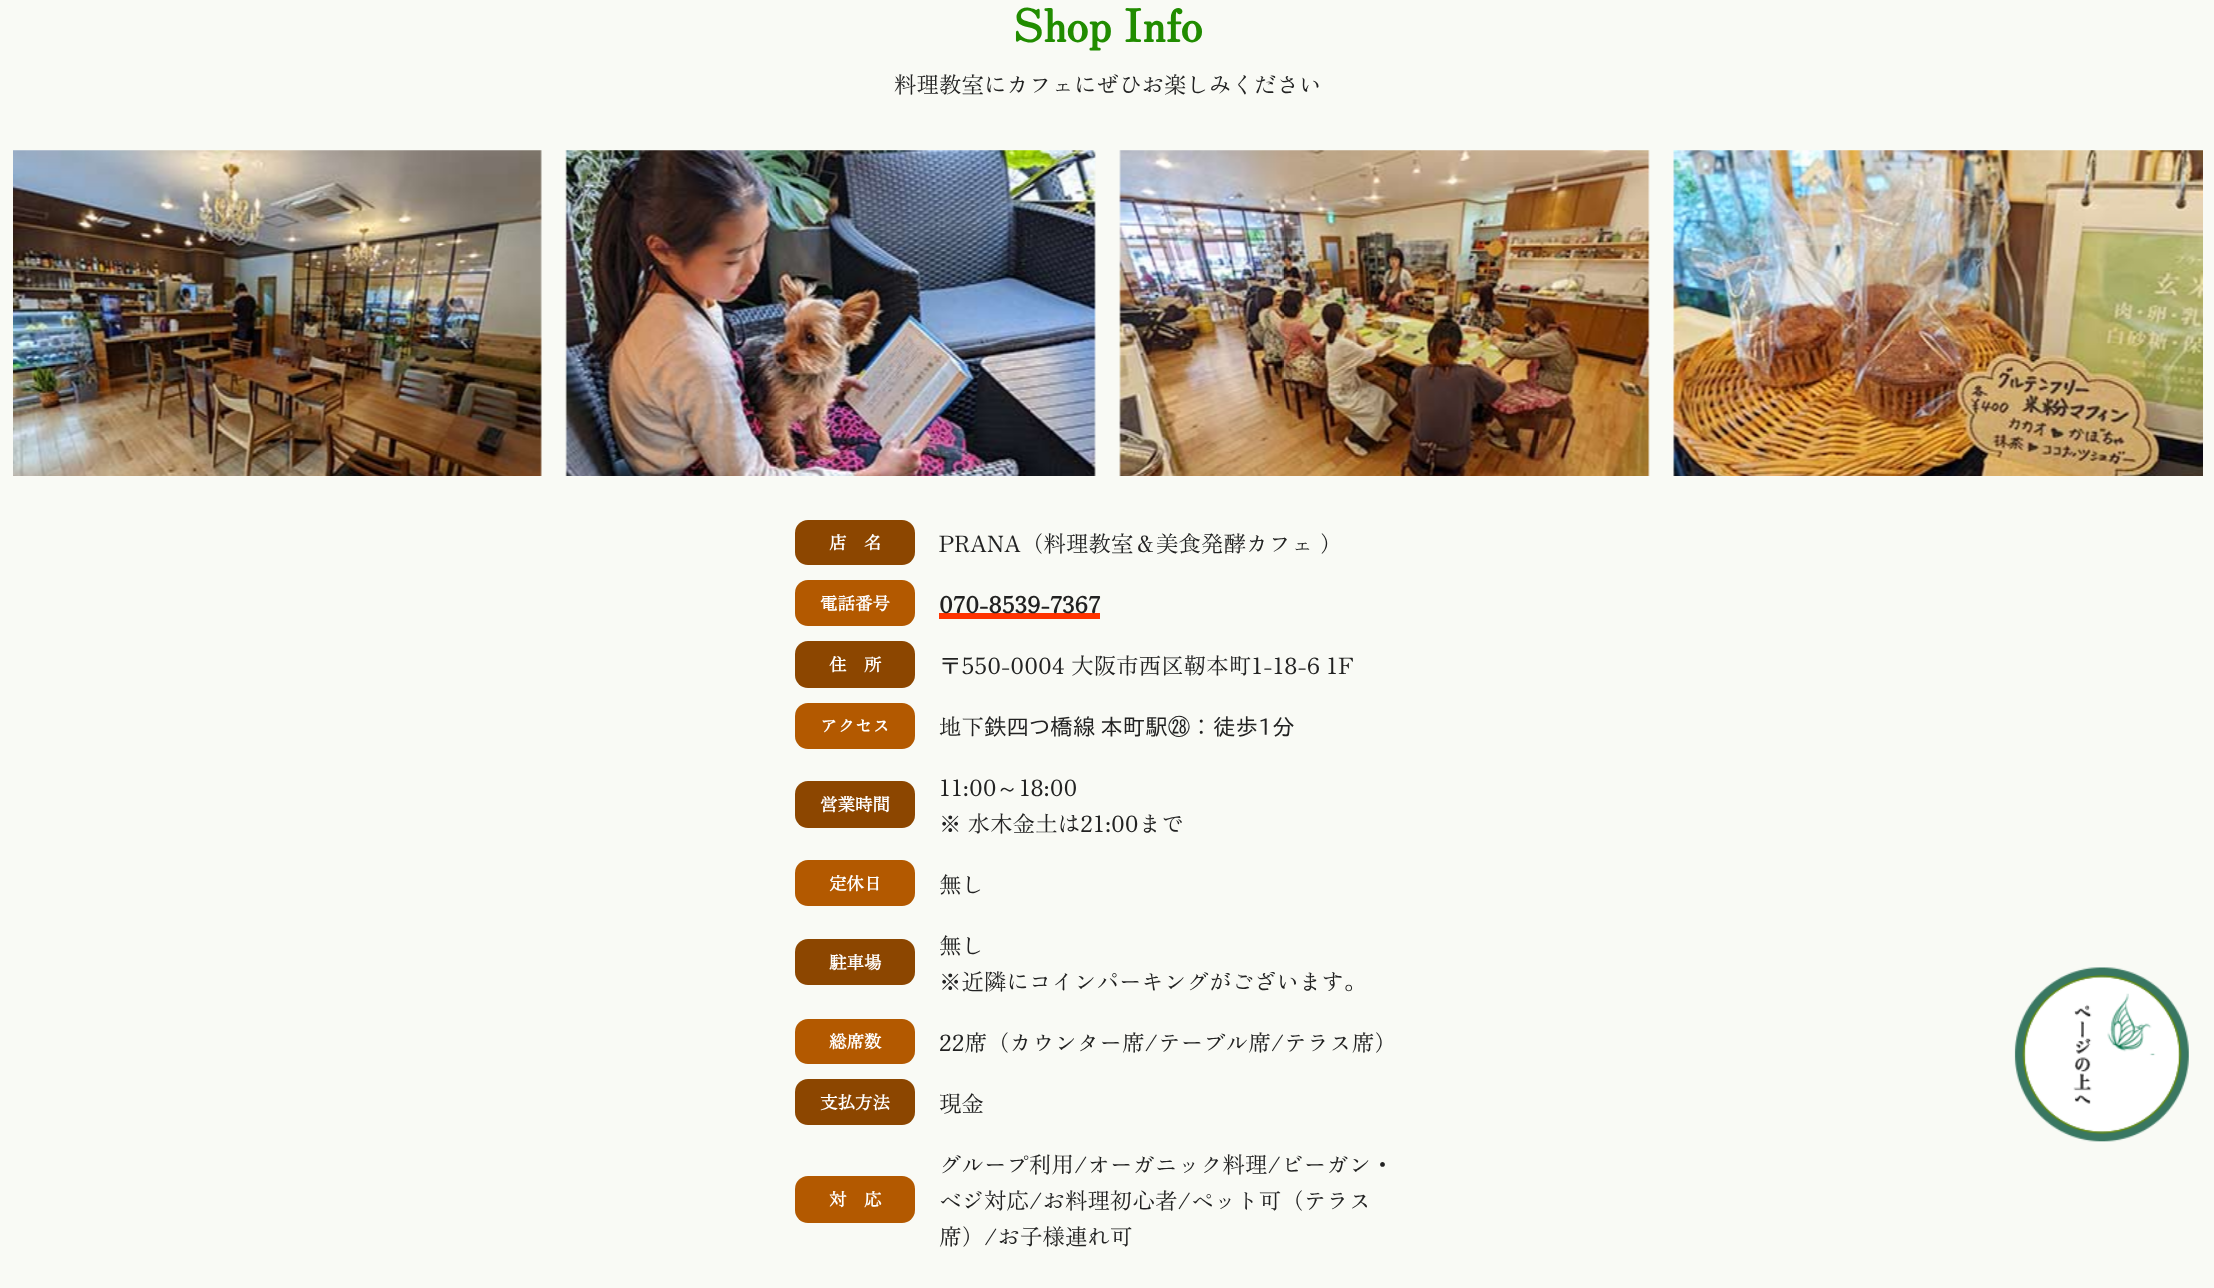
<!DOCTYPE html>
<meta charset="utf-8">
<style>body { margin: 0 } canvas { display: block }</style>
<canvas id="canvas" width="2214" height="1288"></canvas>
<script type="module">
  const canvas = document.getElementById("canvas");
  const ctx = canvas.getContext("2d");
  ctx.miterLimit = 4;
  ctx.fontKerning = "normal";
  async function loadImage(src) {
    const img = new Image();
    img.src = src;
    await img.decode();
    return img;
  }

  ctx.fillStyle = "#f9faf5";
  ctx.fillRect(0, 0, 2214, 1288);
  ctx.font = "bold 45px Zen Old Mincho";
  ctx.fillStyle = "#218c00";
  ctx.fillText("Shop Info", 1013, 42);
  ctx.font = "22.5px Zen Old Mincho";
  ctx.fillStyle = "#222222";
  ctx.fillText("料理教室にカフェにぜひお楽しみください", 894, 93);
  ctx.drawImage(await loadImage("img1.png"), 13, 150, 529, 326);
  ctx.drawImage(await loadImage("img2.png"), 565, 150, 531, 326);
  ctx.drawImage(await loadImage("img3.png"), 1119, 150, 531, 326);
  ctx.drawImage(await loadImage("img4.png"), 1673, 150, 530, 326);
  ctx.fillStyle = "#8c4600";
  ctx.beginPath();
  ctx.roundRect(795, 520, 120, 45, 13);
  ctx.fill();
  ctx.font = "bold 17.5px Zen Old Mincho";
  ctx.fillStyle = "#ffffff";
  ctx.fillText("店　名", 829, 549);
  ctx.font = "22.5px Zen Old Mincho";
  ctx.fillStyle = "#222222";
  ctx.fillText("PRANA（料理教室＆美食発酵カフェ ）", 939, 552);
  ctx.fillStyle = "#b35900";
  ctx.beginPath();
  ctx.roundRect(795, 580, 120, 46, 13);
  ctx.fill();
  ctx.font = "bold 17.5px Zen Old Mincho";
  ctx.fillStyle = "#ffffff";
  ctx.fillText("電話番号", 820, 610);
  ctx.fillStyle = "#ff3300";
  ctx.fillRect(939, 613, 161, 6);
  ctx.font = "bold 22.5px Zen Old Mincho";
  ctx.fillStyle = "#222222";
  ctx.fillText("070-8539-7367", 939, 613);
  ctx.fillStyle = "#8c4600";
  ctx.beginPath();
  ctx.roundRect(795, 641, 120, 47, 13);
  ctx.fill();
  ctx.font = "bold 17.5px Zen Old Mincho";
  ctx.fillStyle = "#ffffff";
  ctx.fillText("住　所", 829, 671);
  ctx.font = "22.5px Zen Old Mincho";
  ctx.fillStyle = "#222222";
  ctx.fillText("〒550-0004 大阪市西区靭本町1-18-6 1F", 939, 674);
  ctx.fillStyle = "#b35900";
  ctx.beginPath();
  ctx.roundRect(795, 703, 120, 46, 13);
  ctx.fill();
  ctx.font = "bold 17.5px Zen Old Mincho";
  ctx.fillStyle = "#ffffff";
  ctx.fillText("アクセス", 820, 732);
  ctx.font = "22.5px Zen Old Mincho";
  ctx.fillStyle = "#222222";
  ctx.fillText("地下", 939, 735);
  ctx.wordSpacing = "-1px";
  ctx.font = "22.5px IPAPGothic";
  ctx.fillText("鉄四つ橋線 本町駅㉘", 984, 735);
  ctx.wordSpacing = "0px";
  ctx.font = "22.5px Zen Old Mincho";
  ctx.fillText("：", 1190, 735);
  ctx.font = "22.5px IPAPGothic";
  ctx.fillText("徒歩1分", 1213, 735);
  ctx.fillStyle = "#8c4600";
  ctx.beginPath();
  ctx.roundRect(795, 781, 120, 47, 13);
  ctx.fill();
  ctx.font = "bold 17.5px Zen Old Mincho";
  ctx.fillStyle = "#ffffff";
  ctx.fillText("営業時間", 820, 811);
  ctx.font = "22.5px Zen Old Mincho";
  ctx.fillStyle = "#222222";
  ctx.fillText("11:00", 939, 796);
  ctx.font = "500 22.5px WenQuanYi Zen Hei";
  ctx.fillText("～", 996, 796);
  ctx.font = "22.5px Zen Old Mincho";
  ctx.fillText("18:00", 1019, 796);
  ctx.fillText("※ 水木金土は21:00まで", 939, 832);
  ctx.fillStyle = "#b35900";
  ctx.beginPath();
  ctx.roundRect(795, 860, 120, 46, 13);
  ctx.fill();
  ctx.font = "bold 17.5px Zen Old Mincho";
  ctx.fillStyle = "#ffffff";
  ctx.fillText("定休日", 829, 890);
  ctx.font = "22.5px Zen Old Mincho";
  ctx.fillStyle = "#222222";
  ctx.fillText("無し", 939, 893);
  ctx.fillStyle = "#8c4600";
  ctx.beginPath();
  ctx.roundRect(795, 939, 120, 46, 13);
  ctx.fill();
  ctx.font = "bold 17.5px Zen Old Mincho";
  ctx.fillStyle = "#ffffff";
  ctx.fillText("駐車場", 829, 969);
  ctx.font = "22.5px Zen Old Mincho";
  ctx.fillStyle = "#222222";
  ctx.fillText("無し", 939, 954);
  ctx.fillText("※近隣にコインパーキングがございます。", 939, 990);
  ctx.fillStyle = "#b35900";
  ctx.beginPath();
  ctx.roundRect(795, 1019, 120, 45, 13);
  ctx.fill();
  ctx.font = "bold 17.5px Zen Old Mincho";
  ctx.fillStyle = "#ffffff";
  ctx.fillText("総席数", 829, 1048);
  ctx.font = "22.5px Zen Old Mincho";
  ctx.fillStyle = "#222222";
  ctx.fillText("22席（カウンター席/テーブル席/テラス席）", 939, 1051);
  ctx.fillStyle = "#8c4600";
  ctx.beginPath();
  ctx.roundRect(795, 1079, 120, 46, 13);
  ctx.fill();
  ctx.font = "bold 17.5px Zen Old Mincho";
  ctx.fillStyle = "#ffffff";
  ctx.fillText("支払方法", 820, 1109);
  ctx.font = "22.5px Zen Old Mincho";
  ctx.fillStyle = "#222222";
  ctx.fillText("現金", 939, 1112);
  ctx.fillStyle = "#b35900";
  ctx.beginPath();
  ctx.roundRect(795, 1176, 120, 47, 13);
  ctx.fill();
  ctx.font = "bold 17.5px Zen Old Mincho";
  ctx.fillStyle = "#ffffff";
  ctx.fillText("対　応", 829, 1206);
  ctx.font = "22.5px Zen Old Mincho";
  ctx.fillStyle = "#222222";
  ctx.fillText("グループ利用/オーガニック料理/ビーガン・", 939, 1173);
  ctx.fillText("ベジ対応/お料理初心者/ペット可（テラス", 939, 1209);
  ctx.fillText("席）/お子様連れ可", 939, 1245);
  ctx.drawImage(await loadImage("img5.png"), 2014, 967, 175, 175);
</script>
